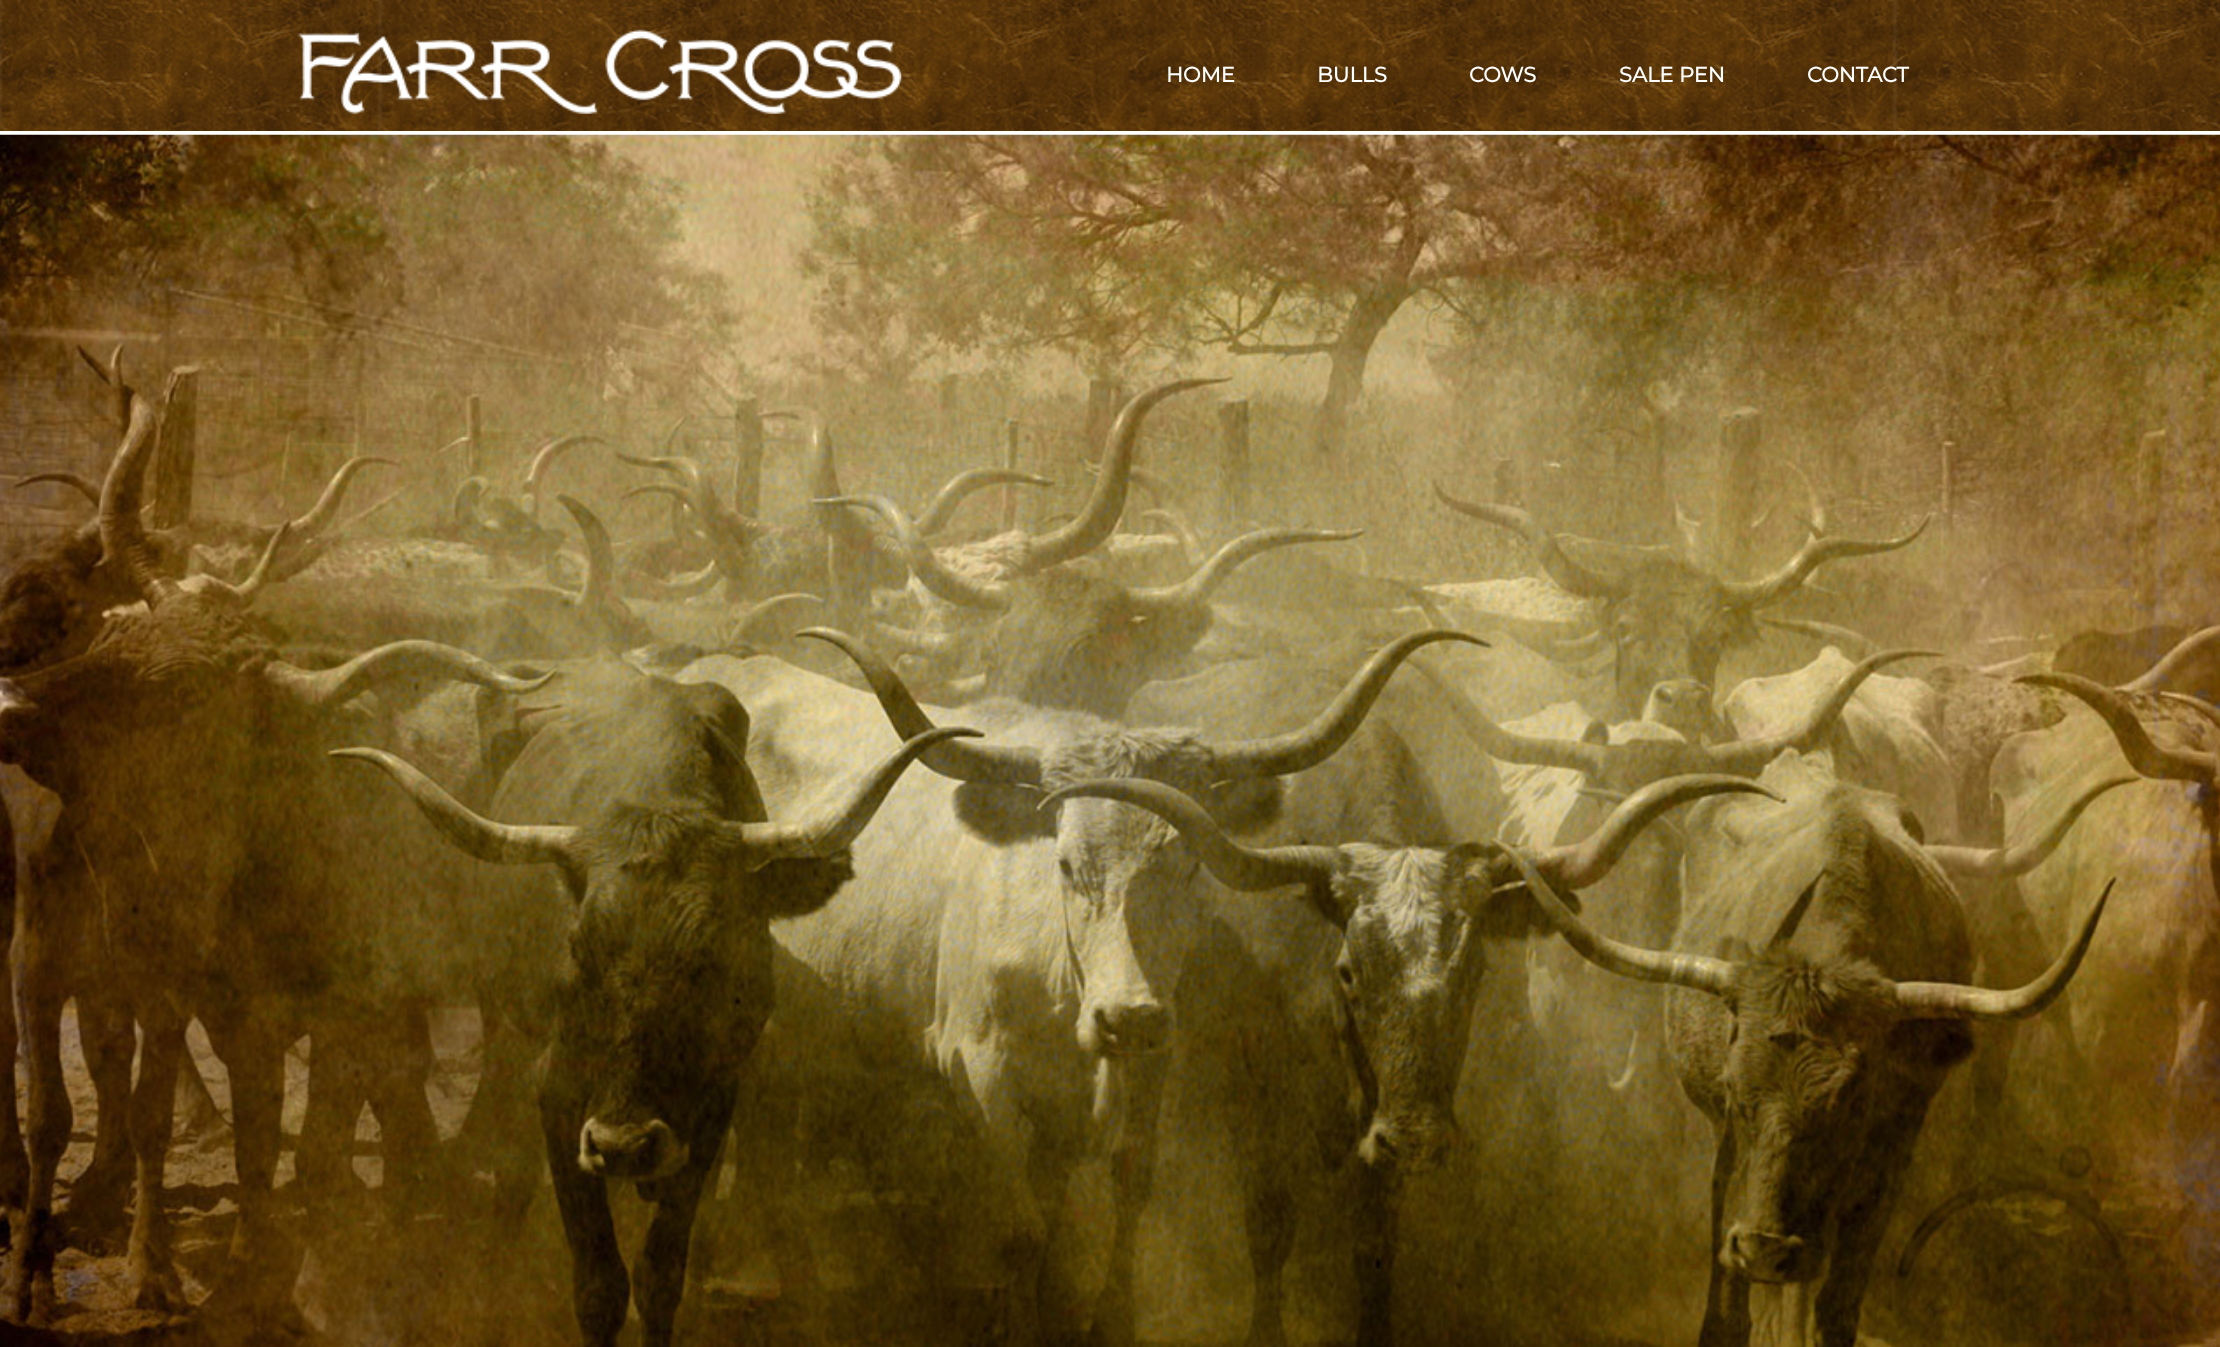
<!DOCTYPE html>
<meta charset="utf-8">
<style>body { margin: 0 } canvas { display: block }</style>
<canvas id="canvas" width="2220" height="1347"></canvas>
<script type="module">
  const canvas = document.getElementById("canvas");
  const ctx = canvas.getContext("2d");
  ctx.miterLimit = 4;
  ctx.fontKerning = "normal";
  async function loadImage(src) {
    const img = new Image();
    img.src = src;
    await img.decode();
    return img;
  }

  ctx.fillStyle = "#ffffff";
  ctx.fillRect(0, 0, 2220, 1347);
  ctx.drawImage(await loadImage("img1.png"), 0, 0, 1898, 131);
  ctx.drawImage(await loadImage("img2.png"), 0, 0, 2220, 131);
  ctx.drawImage(await loadImage("img3.png"), 297, 29, 605, 85);
  ctx.font = "bold 21px Montserrat";
  ctx.fillText("HOME", 1166, 82);
  ctx.fillText("BULLS", 1317, 82);
  ctx.fillText("COWS", 1469, 82);
  ctx.fillText("SALE PEN", 1619, 82);
  ctx.fillText("CONTACT", 1807, 82);
  ctx.drawImage(await loadImage("img4.png"), 0, 134, 2220, 1213);
</script>
